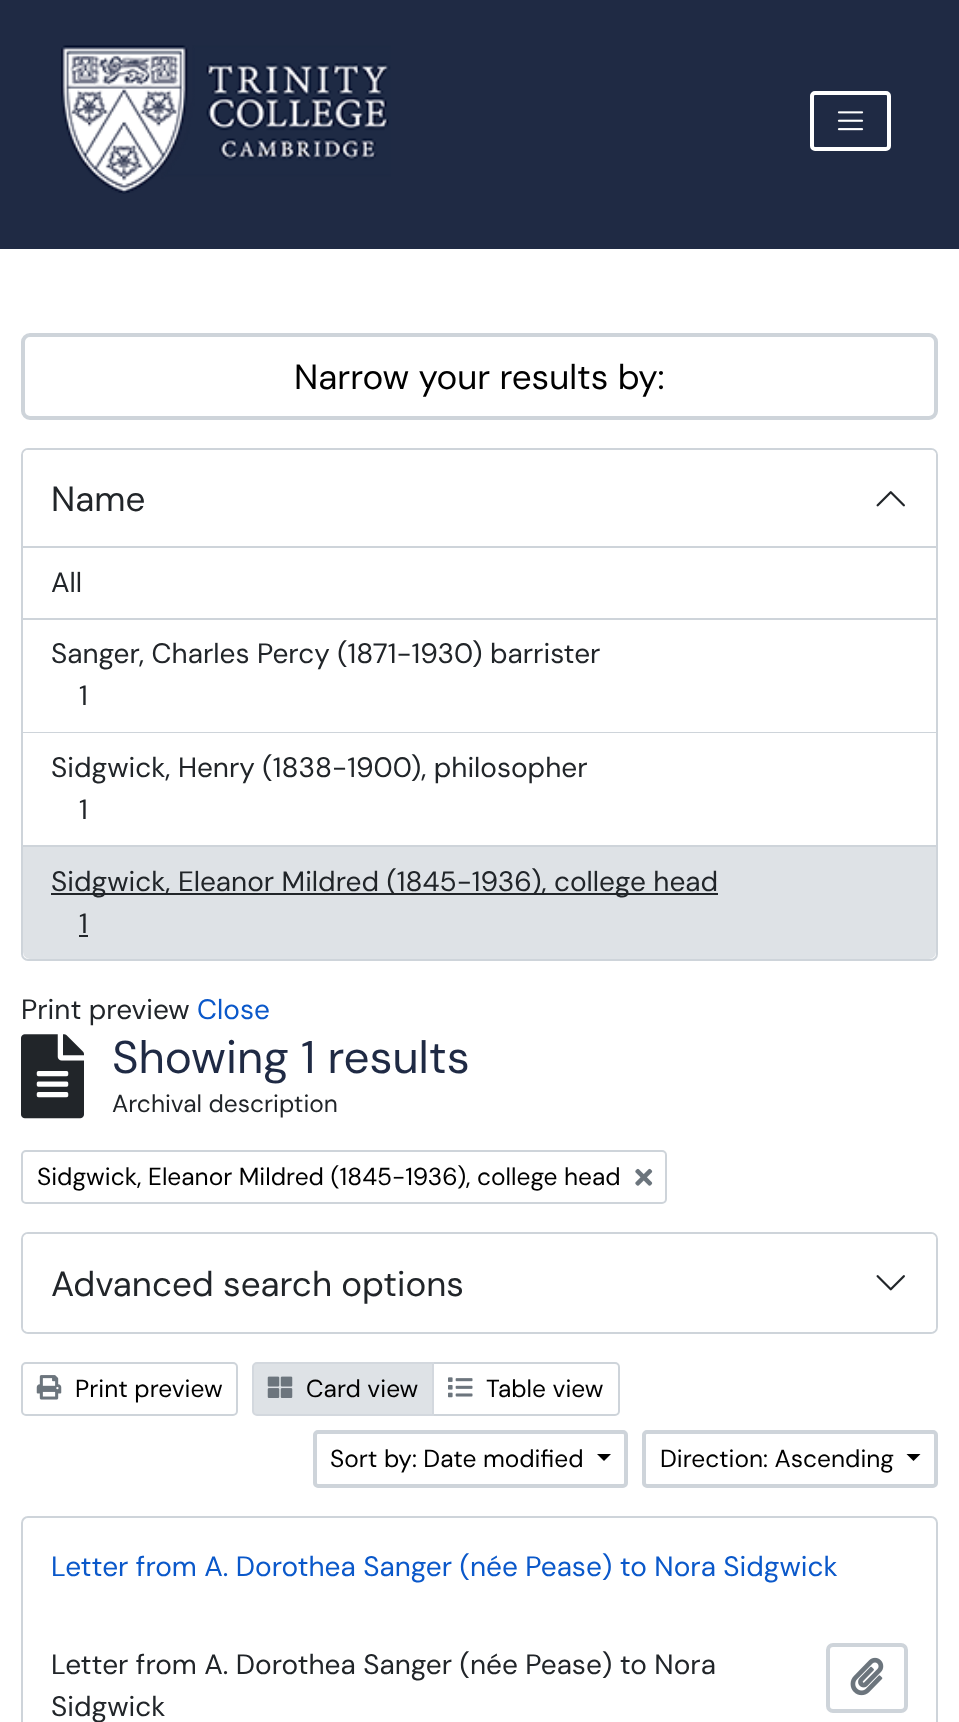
<!DOCTYPE html>
<meta charset="utf-8">
<style>body { margin: 0 } canvas { display: block }</style>
<canvas id="canvas" width="959" height="1722"></canvas>
<script type="module">
  const canvas = document.getElementById("canvas");
  const ctx = canvas.getContext("2d");
  ctx.miterLimit = 4;
  ctx.fontKerning = "normal";
  async function loadImage(src) {
    const img = new Image();
    img.src = src;
    await img.decode();
    return img;
  }

  ctx.fillStyle = "#ffffff";
  ctx.fillRect(0, 0, 959, 1722);
  ctx.fillStyle = "#1f2a44";
  ctx.fillRect(0, 0, 959, 18);
  ctx.fillRect(0, 18, 959, 231);
  ctx.drawImage(await loadImage("img1.png"), 61, 45, 330, 149);
  ctx.beginPath();
  ctx.roundRect(812, 93, 77, 56, 3);
  ctx.strokeStyle = "#ffffff";
  ctx.lineWidth = 4;
  ctx.stroke();
  ctx.drawImage(await loadImage("img2.png"), 837, 111, 27, 20);
  ctx.beginPath();
  ctx.roundRect(23, 335, 913, 83, 7);
  ctx.strokeStyle = "#ced4da";
  ctx.stroke();
  ctx.font = "35px DM Sans";
  ctx.fillStyle = "#000000";
  ctx.fillText("Narrow your results by:", 294, 389);
  ctx.beginPath();
  ctx.roundRect(22, 449, 915, 511, 6);
  ctx.lineWidth = 2;
  ctx.stroke();
  ctx.fillStyle = "#ffffff";
  ctx.beginPath();
  ctx.roundRect(23, 450, 913, 98, [5, 5, 0, 0]);
  ctx.fill();
  ctx.fillStyle = "#ced4da";
  ctx.fillRect(23, 546, 913, 2);
  ctx.fillStyle = "#212529";
  ctx.fillText("Name", 51, 511);
  ctx.drawImage(await loadImage("img3.png"), 876, 491, 29, 16);
  ctx.fillStyle = "#ced4da";
  ctx.fillRect(23, 618, 913, 2);
  ctx.font = "28px DM Sans";
  ctx.fillStyle = "#212529";
  ctx.fillText("All", 51, 592);
  ctx.fillStyle = "#ced4da";
  ctx.fillRect(23, 732, 913, 1);
  ctx.fillStyle = "#212529";
  ctx.fillText("Sanger, Charles Percy (1871-1930) barrister", 51, 663);
  ctx.fillText("1", 79, 705);
  ctx.fillStyle = "#ced4da";
  ctx.fillRect(23, 845, 913, 2);
  ctx.fillStyle = "#212529";
  ctx.fillText("Sidgwick, Henry (1838-1900), philosopher", 51, 777);
  ctx.fillText("1", 79, 819);
  ctx.fillStyle = "#dee2e6";
  ctx.beginPath();
  ctx.roundRect(23, 847, 913, 112, [0, 0, 7, 7]);
  ctx.fill();
  ctx.fillStyle = "#212529";
  ctx.fillRect(51, 893, 667, 2);
  ctx.fillText("Sidgwick, Eleanor Mildred (1845-1936), college head", 51, 891);
  ctx.fillText("1", 79, 933);
  ctx.fillRect(79, 935, 9, 2);
  ctx.fillText("Print preview", 21, 1019);
  ctx.fillStyle = "#0a58ca";
  ctx.fillText("Close", 197, 1019);
  ctx.drawImage(await loadImage("img4.png"), 21, 1034, 63, 85);
  ctx.font = "45.75px DM Sans";
  ctx.fillStyle = "#1f2a44";
  ctx.fillText("Showing 1 results", 112, 1073);
  ctx.font = "24.5px DM Sans";
  ctx.fillStyle = "#212529";
  ctx.fillText("Archival description", 112, 1112);
  ctx.beginPath();
  ctx.roundRect(22, 1151, 644, 52, 4);
  ctx.stroke();
  ctx.fillStyle = "#000000";
  ctx.fillText("Sidgwick, Eleanor Mildred (1845-1936), college head", 37, 1185);
  ctx.drawImage(await loadImage("img5.png"), 635, 1168, 18, 18);
  ctx.beginPath();
  ctx.roundRect(22, 1233, 915, 100, 6);
  ctx.stroke();
  ctx.fillStyle = "#ffffff";
  ctx.beginPath();
  ctx.roundRect(23, 1234, 913, 98, 5);
  ctx.fill();
  ctx.font = "35px DM Sans";
  ctx.fillStyle = "#212529";
  ctx.fillText("Advanced search options", 51, 1296);
  ctx.drawImage(await loadImage("img6.png"), 876, 1275, 29, 16);
  ctx.beginPath();
  ctx.roundRect(22, 1363, 215, 52, 4);
  ctx.stroke();
  ctx.drawImage(await loadImage("img7.png"), 36, 1375, 26, 25);
  ctx.font = "24.5px DM Sans";
  ctx.fillStyle = "#000000";
  ctx.fillText("Print preview", 75, 1397);
  ctx.beginPath();
  ctx.roundRect(433, 1363, 186, 52, [0, 4, 4, 0]);
  ctx.stroke();
  ctx.fillStyle = "#dee2e6";
  ctx.beginPath();
  ctx.roundRect(253, 1363, 180, 52, [4, 0, 0, 4]);
  ctx.fill();
  ctx.strokeStyle = "#d3d8de";
  ctx.stroke();
  ctx.drawImage(await loadImage("img8.png"), 267, 1376, 26, 22);
  ctx.fillStyle = "#000000";
  ctx.fillText("Card view", 306, 1397);
  ctx.drawImage(await loadImage("img9.png"), 448, 1377, 25, 21);
  ctx.fillText("Table view", 486, 1397);
  ctx.beginPath();
  ctx.roundRect(315, 1432, 311, 54, 3);
  ctx.strokeStyle = "#ced4da";
  ctx.lineWidth = 4;
  ctx.stroke();
  ctx.fillText("Sort by: Date modified", 330, 1467);
  ctx.beginPath();
  ctx.moveTo(597, 1454);
  ctx.lineTo(611, 1454);
  ctx.lineTo(604, 1461);
  ctx.closePath();
  ctx.fill();
  ctx.beginPath();
  ctx.roundRect(644, 1432, 292, 54, 3);
  ctx.stroke();
  ctx.fillText("Direction: Ascending", 660, 1467);
  ctx.beginPath();
  ctx.moveTo(906.5, 1454);
  ctx.lineTo(920.5, 1454);
  ctx.lineTo(913.5, 1461);
  ctx.closePath();
  ctx.fill();
  ctx.beginPath();
  ctx.roundRect(22, 1517, 915, 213, 6);
  ctx.lineWidth = 2;
  ctx.stroke();
  ctx.font = "28px DM Sans";
  ctx.fillStyle = "#0a58ca";
  ctx.fillText("Letter from A. Dorothea Sanger (née Pease) to Nora Sidgwick", 51, 1576);
  ctx.fillStyle = "#212529";
  ctx.fillText("Letter from A. Dorothea Sanger (née Pease) to Nora", 51, 1674);
  ctx.fillText("Sidgwick", 51, 1716);
  ctx.beginPath();
  ctx.roundRect(828, 1645, 78, 66, 5);
  ctx.lineWidth = 4;
  ctx.stroke();
  ctx.drawImage(await loadImage("img10.png"), 850, 1657, 34, 39);
</script>
